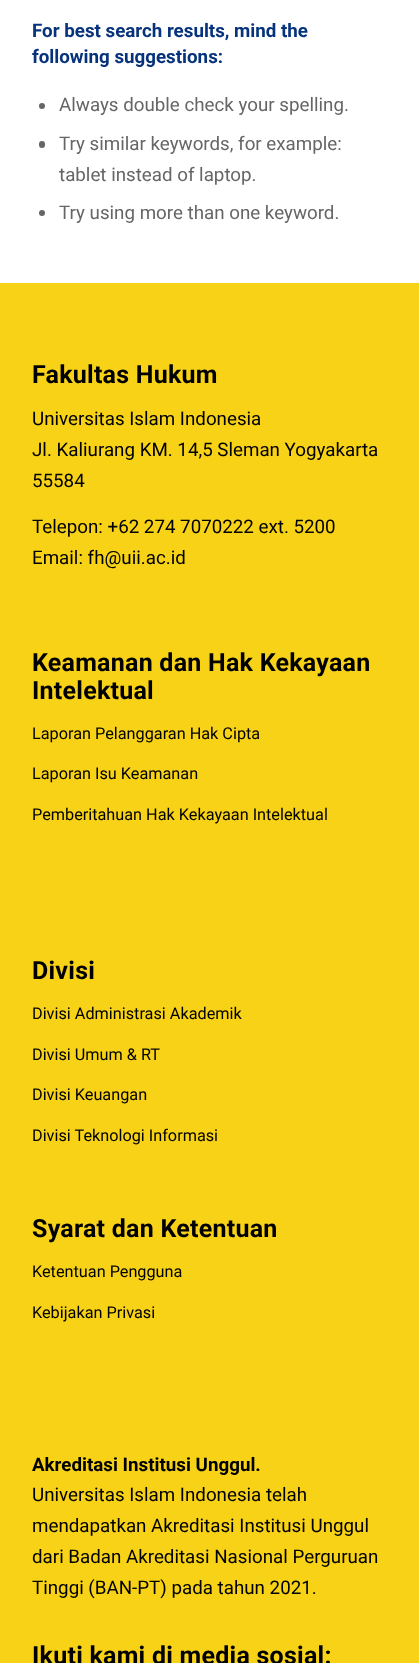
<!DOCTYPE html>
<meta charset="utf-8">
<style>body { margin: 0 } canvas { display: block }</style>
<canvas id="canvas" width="419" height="1663"></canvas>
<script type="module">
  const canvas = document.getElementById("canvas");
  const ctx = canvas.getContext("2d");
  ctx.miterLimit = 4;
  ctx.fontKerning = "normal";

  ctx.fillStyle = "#ffffff";
  ctx.fillRect(0, 0, 419, 1663);
  ctx.font = "bold 18.75px Roboto";
  ctx.fillStyle = "#06337b";
  ctx.fillText("For best search results, mind the", 32, 37);
  ctx.fillText("following suggestions:", 32, 63);
  ctx.fillStyle = "#666666";
  ctx.beginPath();
  ctx.arc(42, 106, 3, 0, Math.PI * 2);
  ctx.fill();
  ctx.font = "18.75px Roboto";
  ctx.fillText("Always double check your spelling.", 59, 111);
  ctx.beginPath();
  ctx.roundRect(39, 141, 6, 7, 3);
  ctx.fill();
  ctx.fillText("Try similar keywords, for example:", 59, 150);
  ctx.fillText("tablet instead of laptop.", 59, 181);
  ctx.beginPath();
  ctx.arc(42, 213, 3, 0, Math.PI * 2);
  ctx.fill();
  ctx.fillText("Try using more than one keyword.", 59, 219);
  ctx.fillStyle = "#f7d217";
  ctx.fillRect(0, 283, 419, 1380);
  ctx.letterSpacing = "0.25px";
  ctx.font = "bold 25px Roboto";
  ctx.fillStyle = "#000000";
  ctx.fillText("Fakultas Hukum", 32, 383);
  ctx.letterSpacing = "0px";
  ctx.font = "18.75px Roboto";
  ctx.fillText("Universitas Islam Indonesia", 32, 425);
  ctx.fillText("Jl. Kaliurang KM. 14,5 Sleman Yogyakarta", 32, 456);
  ctx.fillText("55584", 32, 487);
  ctx.fillText("Telepon: +62 274 7070222 ext. 5200", 32, 533);
  ctx.fillText("Email: fh@uii.ac.id", 32, 564);
  ctx.letterSpacing = "0.25px";
  ctx.font = "bold 25px Roboto";
  ctx.fillText("Keamanan dan Hak Kekayaan", 32, 671);
  ctx.fillText("Intelektual", 32, 699);
  ctx.letterSpacing = "0px";
  ctx.font = "16.25px Roboto";
  ctx.fillText("Laporan Pelanggaran Hak Cipta", 32, 739);
  ctx.fillText("Laporan Isu Keamanan", 32, 779);
  ctx.fillText("Pemberitahuan Hak Kekayaan Intelektual", 32, 820);
  ctx.letterSpacing = "0.25px";
  ctx.font = "bold 25px Roboto";
  ctx.fillText("Divisi", 32, 979);
  ctx.letterSpacing = "0px";
  ctx.font = "16.25px Roboto";
  ctx.fillText("Divisi Administrasi Akademik", 32, 1019);
  ctx.fillText("Divisi Umum & RT", 32, 1060);
  ctx.fillText("Divisi Keuangan", 32, 1100);
  ctx.fillText("Divisi Teknologi Informasi", 32, 1141);
  ctx.letterSpacing = "0.25px";
  ctx.font = "bold 25px Roboto";
  ctx.fillText("Syarat dan Ketentuan", 32, 1237);
  ctx.letterSpacing = "0px";
  ctx.font = "16.25px Roboto";
  ctx.fillText("Ketentuan Pengguna", 32, 1277);
  ctx.fillText("Kebijakan Privasi", 32, 1318);
  ctx.font = "bold 18.75px Roboto";
  ctx.fillText("Akreditasi Institusi Unggul.", 32, 1471);
  ctx.font = "18.75px Roboto";
  ctx.fillText("Universitas Islam Indonesia telah", 32, 1501);
  ctx.fillText("mendapatkan Akreditasi Institusi Unggul", 32, 1532);
  ctx.fillText("dari Badan Akreditasi Nasional Perguruan", 32, 1563);
  ctx.fillText("Tinggi (BAN-PT) pada tahun 2021.", 32, 1594);
  ctx.letterSpacing = "0.25px";
  ctx.font = "bold 25px Roboto";
  ctx.fillText("Ikuti kami di media sosial:", 32, 1664);
</script>
